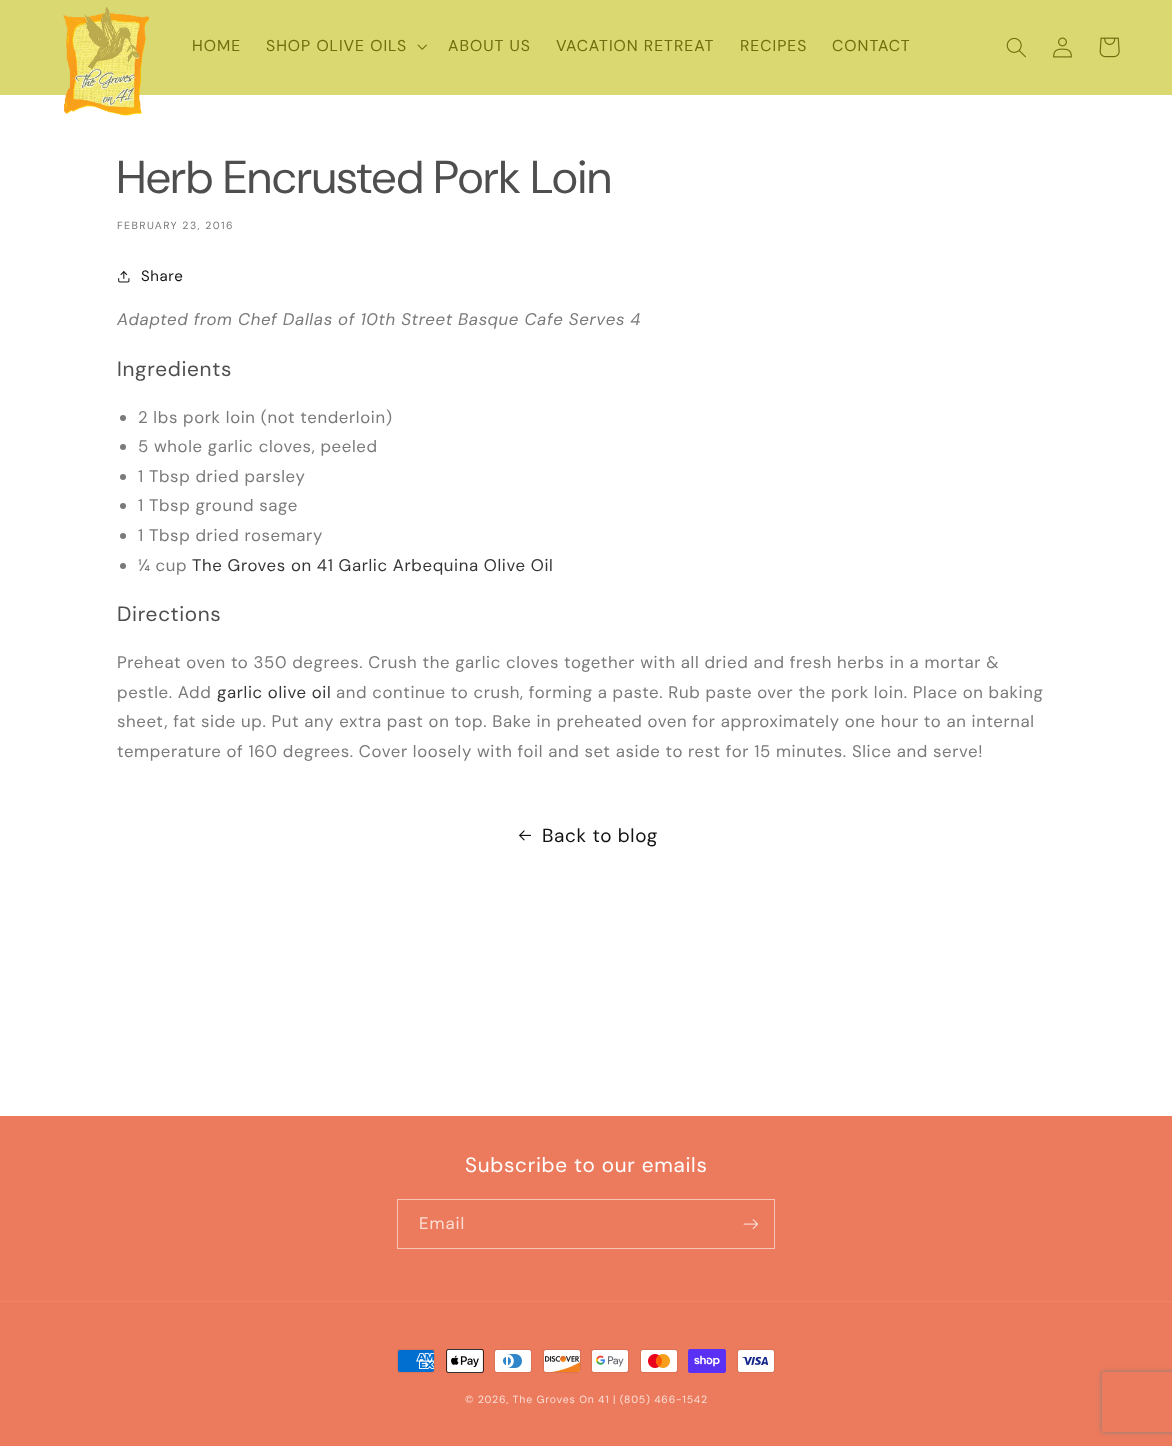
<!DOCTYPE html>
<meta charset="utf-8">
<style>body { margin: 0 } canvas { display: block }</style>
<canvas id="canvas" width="1172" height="1446"></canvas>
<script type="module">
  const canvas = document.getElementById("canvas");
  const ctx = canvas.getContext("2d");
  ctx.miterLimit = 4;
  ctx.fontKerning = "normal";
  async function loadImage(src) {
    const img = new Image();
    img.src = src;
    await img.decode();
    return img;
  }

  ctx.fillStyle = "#ffffff";
  ctx.fillRect(0, 0, 1172, 1446);
  ctx.fillStyle = "#dad871";
  ctx.fillRect(0, 0, 1172, 95);
  ctx.drawImage(await loadImage("img1.png"), 63, 7, 87, 109);
  ctx.letterSpacing = "1px";
  ctx.font = "15.75px 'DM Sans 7'";
  ctx.fillStyle = "#6f6d0d";
  ctx.fillText("HOME", 192, 51);
  ctx.fillText("SHOP OLIVE OILS", 266, 51);
  ctx.drawImage(await loadImage("img2.png"), 417, 44, 10, 6);
  ctx.fillText("ABOUT US", 448, 51);
  ctx.fillText("VACATION RETREAT", 556, 51);
  ctx.fillText("RECIPES", 740, 51);
  ctx.fillText("CONTACT", 832, 51);
  ctx.drawImage(await loadImage("img3.png"), 1006, 37, 20, 21);
  ctx.drawImage(await loadImage("img4.png"), 1053, 37, 19, 21);
  ctx.drawImage(await loadImage("img5.png"), 1099, 37, 21, 21);
  ctx.letterSpacing = "0.7px";
  ctx.font = "46px 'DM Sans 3'";
  ctx.fillStyle = "#4e4e4e";
  ctx.fillText("Herb Encrusted Pork Loin", 117, 193);
  ctx.letterSpacing = "1.4px";
  ctx.font = "10.5px 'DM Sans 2'";
  ctx.fillStyle = "#7a7a7a";
  ctx.fillText("FEBRUARY 23, 2016", 117, 229);
  ctx.drawImage(await loadImage("img6.png"), 118, 271, 12, 12);
  ctx.letterSpacing = "0.63px";
  ctx.font = "15px 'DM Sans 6'";
  ctx.fillStyle = "#121212";
  ctx.fillText("Share", 141, 281);
  ctx.font = "italic 16.8px DM Sans";
  ctx.fillStyle = "#7a7a7a";
  ctx.fillText("Adapted from Chef Dallas of 10th Street Basque Cafe Serves 4", 117, 325);
  ctx.letterSpacing = "0.7px";
  ctx.font = "20.75px DM Sans";
  ctx.fillStyle = "#4e4e4e";
  ctx.fillText("Ingredients", 117, 376);
  ctx.fillStyle = "#7a7a7a";
  ctx.beginPath();
  ctx.arc(123, 418, 3, 0, Math.PI * 2);
  ctx.fill();
  ctx.letterSpacing = "0.63px";
  ctx.font = "16.8px 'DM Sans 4'";
  ctx.fillText("2 lbs pork loin (not tenderloin)", 138, 423);
  ctx.beginPath();
  ctx.arc(123, 447, 3, 0, Math.PI * 2);
  ctx.fill();
  ctx.fillText("5 whole garlic cloves, peeled", 138, 452);
  ctx.beginPath();
  ctx.arc(123, 477, 3, 0, Math.PI * 2);
  ctx.fill();
  ctx.fillText("1 Tbsp dried parsley", 138, 482);
  ctx.beginPath();
  ctx.arc(123, 506, 3, 0, Math.PI * 2);
  ctx.fill();
  ctx.fillText("1 Tbsp ground sage", 138, 511);
  ctx.beginPath();
  ctx.arc(123, 536, 3, 0, Math.PI * 2);
  ctx.fill();
  ctx.fillText("1 Tbsp dried rosemary", 138, 541);
  ctx.beginPath();
  ctx.arc(123, 566, 3, 0, Math.PI * 2);
  ctx.fill();
  ctx.fillText("¼ cup", 138, 571);
  ctx.fillStyle = "#363636";
  ctx.fillText("The Groves on 41 Garlic Arbequina Olive Oil", 192, 571);
  ctx.letterSpacing = "0.7px";
  ctx.font = "20.75px DM Sans";
  ctx.fillStyle = "#4e4e4e";
  ctx.fillText("Directions", 117, 621);
  ctx.letterSpacing = "0.63px";
  ctx.font = "16.8px 'DM Sans 4'";
  ctx.fillStyle = "#7a7a7a";
  ctx.fillText("Preheat oven to 350 degrees. Crush the garlic cloves together with all dried and fresh herbs in a mortar &", 117, 668);
  ctx.fillText("pestle. Add", 117, 698);
  ctx.fillStyle = "#363636";
  ctx.fillText("garlic olive oil", 217, 698);
  ctx.fillStyle = "#7a7a7a";
  ctx.fillText("and continue to crush, forming a paste. Rub paste over the pork loin. Place on baking", 336, 698);
  ctx.fillText("sheet, fat side up. Put any extra past on top. Bake in preheated oven for approximately one hour to an internal", 117, 727);
  ctx.fillText("temperature of 160 degrees. Cover loosely with foil and set aside to rest for 15 minutes. Slice and serve!", 117, 757);
  ctx.drawImage(await loadImage("img7.png"), 519, 830, 12, 11);
  ctx.font = "19px 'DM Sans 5'";
  ctx.fillStyle = "#121212";
  ctx.fillText("Back to blog", 542, 842);
  ctx.fillStyle = "#ec7a5c";
  ctx.fillRect(0, 1116, 1172, 330);
  ctx.letterSpacing = "0.7px";
  ctx.font = "20.75px DM Sans";
  ctx.fillStyle = "#ffffff";
  ctx.fillText("Subscribe to our emails", 465, 1172);
  ctx.strokeStyle = "#f6c3b6";
  ctx.strokeRect(397.5, 1199.5, 377, 49);
  ctx.letterSpacing = "1px";
  ctx.font = "16.8px 'DM Sans 4'";
  ctx.fillStyle = "#faded6";
  ctx.fillText("Email", 419, 1229);
  ctx.drawImage(await loadImage("img8.png"), 743, 1219, 16, 11);
  ctx.fillStyle = "#ee8569";
  ctx.fillRect(0, 1301, 1172, 1);
  ctx.drawImage(await loadImage("img9.png"), 397, 1349, 38, 24);
  ctx.drawImage(await loadImage("img10.png"), 446, 1349, 38, 24);
  ctx.drawImage(await loadImage("img11.png"), 494, 1349, 38, 24);
  ctx.drawImage(await loadImage("img12.png"), 543, 1349, 38, 24);
  ctx.drawImage(await loadImage("img13.png"), 591, 1349, 38, 24);
  ctx.drawImage(await loadImage("img14.png"), 640, 1349, 38, 24);
  ctx.drawImage(await loadImage("img15.png"), 688, 1349, 38, 24);
  ctx.drawImage(await loadImage("img16.png"), 737, 1349, 38, 24);
  ctx.letterSpacing = "0.75px";
  ctx.font = "10.5px 'DM Sans 2'";
  ctx.fillStyle = "#faded6";
  ctx.fillText("© 2026, The Groves On 41", 465, 1403);
  ctx.fillText("| (805) 466-1542", 613, 1403);
  ctx.save();
  ctx.beginPath();
  ctx.moveTo(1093, 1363);
  ctx.lineTo(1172, 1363);
  ctx.lineTo(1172, 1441);
  ctx.lineTo(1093, 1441);
  ctx.closePath();
  ctx.moveTo(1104, 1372);
  ctx.lineTo(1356, 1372);
  ctx.bezierCurveTo(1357, 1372, 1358, 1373, 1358, 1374);
  ctx.lineTo(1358, 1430);
  ctx.bezierCurveTo(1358, 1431, 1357, 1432, 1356, 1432);
  ctx.lineTo(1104, 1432);
  ctx.bezierCurveTo(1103, 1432, 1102, 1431, 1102, 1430);
  ctx.lineTo(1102, 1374);
  ctx.bezierCurveTo(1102, 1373, 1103, 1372, 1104, 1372);
  ctx.closePath();
  ctx.clip("evenodd");
  ctx.fillStyle = "#808080";
  ctx.filter = "blur(2.5px)";
  ctx.beginPath();
  ctx.roundRect(1102, 1372, 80, 60, 2);
  ctx.fill();
  ctx.filter = "none";
  ctx.restore();
</script>
